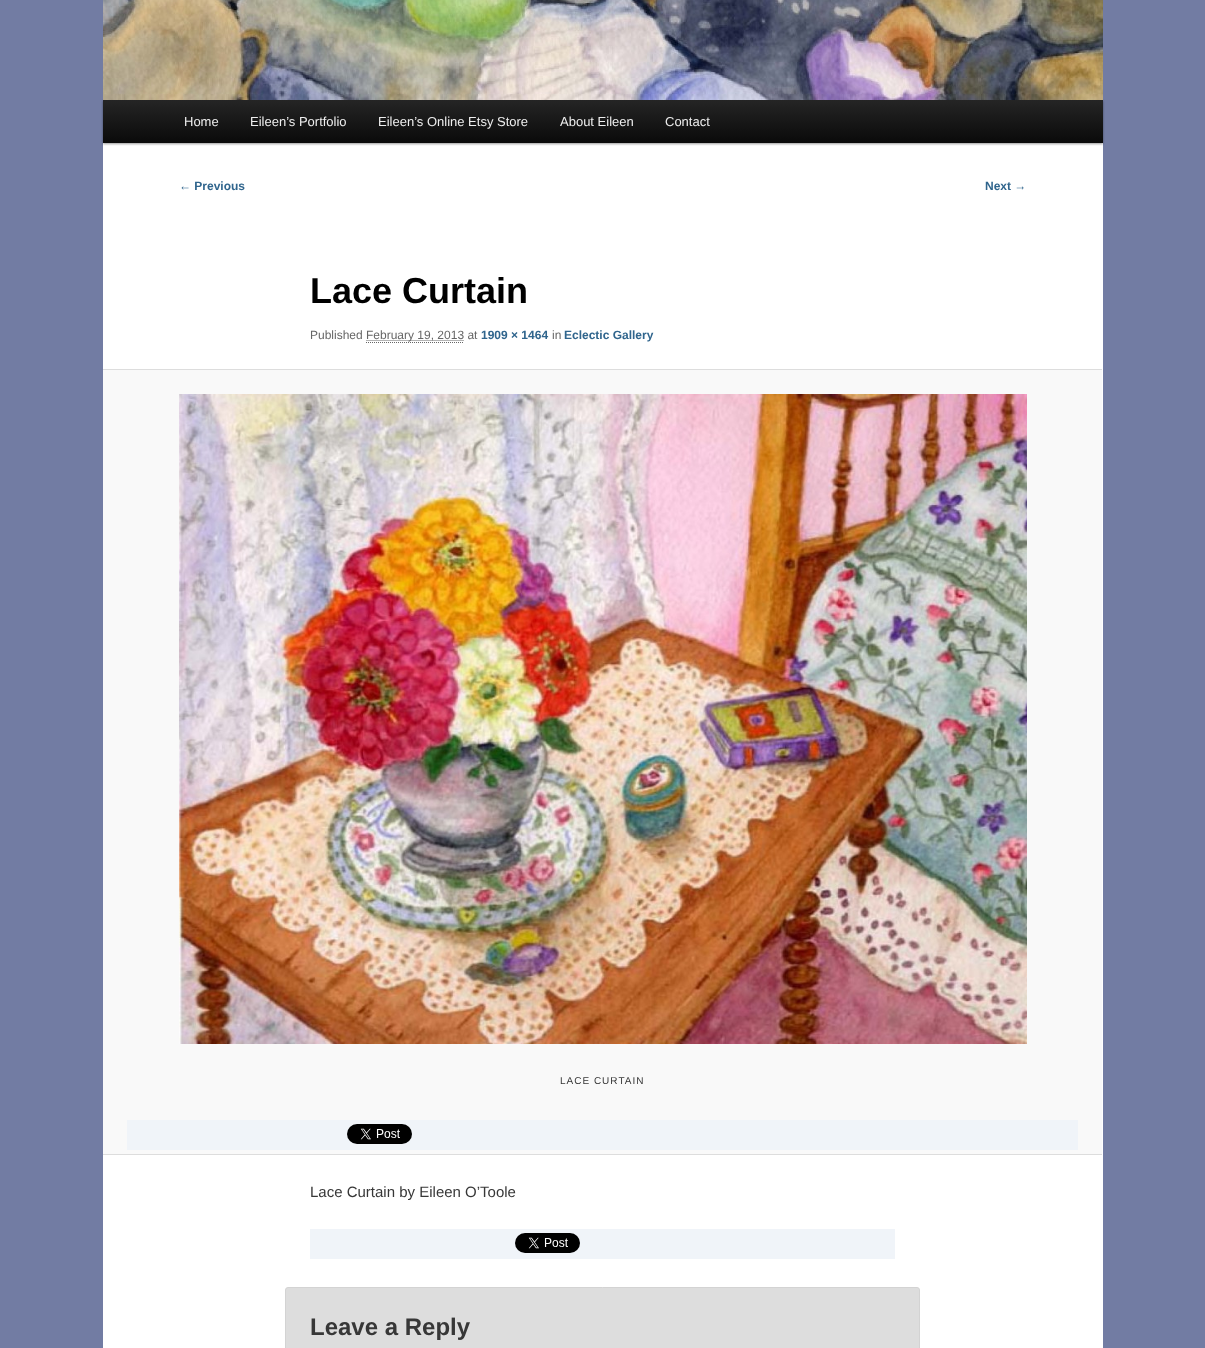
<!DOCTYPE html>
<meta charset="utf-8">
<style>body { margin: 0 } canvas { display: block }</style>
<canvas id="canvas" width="1205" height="1348"></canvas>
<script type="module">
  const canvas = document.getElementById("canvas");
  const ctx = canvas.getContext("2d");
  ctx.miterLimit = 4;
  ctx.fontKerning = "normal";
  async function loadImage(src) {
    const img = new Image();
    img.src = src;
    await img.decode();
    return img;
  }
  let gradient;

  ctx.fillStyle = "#727ca3";
  ctx.fillRect(0, 0, 1205, 1348);
  ctx.fillStyle = "#ffffff";
  ctx.fillRect(103, 143, 1000, 1205);
  ctx.fillStyle = "rgba(0, 0, 0, 0.4)";
  ctx.filter = "blur(1px)";
  ctx.beginPath();
  ctx.rect(103, 101, 1000, 43);
  ctx.fill();
  ctx.filter = "none";
  ctx.drawImage(await loadImage("img1.png"), 103, 0, 1000, 100);
  gradient = ctx.createLinearGradient(603, 100, 603, 143);
  gradient.addColorStop(0, "#252525");
  gradient.addColorStop(1, "#0a0a0a");
  ctx.fillStyle = gradient;
  ctx.fillRect(103, 100, 1000, 43);
  ctx.font = "13px Liberation Sans";
  ctx.fillStyle = "#eeeeee";
  ctx.fillText("Home", 184, 126);
  ctx.fillText("Eileen’s Portfolio", 250, 126);
  ctx.fillText("Eileen’s Online Etsy Store", 378, 126);
  ctx.fillText("About Eileen", 560, 126);
  ctx.fillText("Contact", 665, 126);
  ctx.font = "bold 12px Liberation Sans";
  ctx.fillStyle = "#30658d";
  ctx.fillText("← Previous", 179, 190);
  ctx.fillText("Next →", 985, 190);
  ctx.font = "bold 36px Liberation Sans";
  ctx.fillStyle = "#000000";
  ctx.fillText("Lace Curtain", 310, 303);
  ctx.font = "12px Liberation Sans";
  ctx.fillStyle = "#666666";
  ctx.fillText("Published", 310, 339);
  ctx.beginPath();
  ctx.moveTo(366.5, 340.5);
  ctx.lineTo(464.5, 340.5);
  ctx.strokeStyle = "#666666";
  ctx.setLineDash([1, 1]);
  ctx.stroke();
  ctx.fillText("February 19, 2013 at", 366, 339);
  ctx.beginPath();
  ctx.moveTo(366, 342.5);
  ctx.lineTo(464, 342.5);
  ctx.stroke();
  ctx.font = "bold 12px Liberation Sans";
  ctx.fillStyle = "#30658d";
  ctx.fillText("1909 × 1464", 481, 339);
  ctx.font = "12px Liberation Sans";
  ctx.fillStyle = "#666666";
  ctx.fillText("in", 552, 339);
  ctx.font = "bold 12px Liberation Sans";
  ctx.fillStyle = "#30658d";
  ctx.fillText("Eclectic Gallery", 564, 339);
  ctx.fillStyle = "#f9f9f9";
  ctx.fillRect(103, 370, 999, 784);
  ctx.fillStyle = "#dddddd";
  ctx.fillRect(103, 369, 999, 1);
  ctx.fillRect(103, 1154, 999, 1);
  ctx.drawImage(await loadImage("img2.png"), 179, 394, 848, 650);
  ctx.letterSpacing = "1px";
  ctx.font = "10px Liberation Sans";
  ctx.fillStyle = "#373737";
  ctx.fillText("LACE CURTAIN", 560, 1084);
  ctx.fillStyle = "#f0f4f9";
  ctx.fillRect(127, 1120, 951, 30);
  ctx.drawImage(await loadImage("img3.png"), 347, 1124, 65, 20);
  ctx.letterSpacing = "0px";
  ctx.font = "15px Liberation Sans";
  ctx.fillStyle = "#373737";
  ctx.fillText("Lace Curtain by Eileen O’Toole", 310, 1197);
  ctx.fillStyle = "#f0f4f9";
  ctx.fillRect(310, 1229, 585, 30);
  ctx.drawImage(await loadImage("img3.png"), 515, 1233, 65, 20);
  ctx.fillStyle = "#dddddd";
  ctx.beginPath();
  ctx.roundRect(285.5, 1287.5, 634, 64, 2.5);
  ctx.fill();
  ctx.strokeStyle = "#d3d3d3";
  ctx.setLineDash([]);
  ctx.stroke();
  ctx.font = "bold 24px Liberation Sans";
  ctx.fillStyle = "#373737";
  ctx.fillText("Leave a Reply", 310, 1335);
</script>
